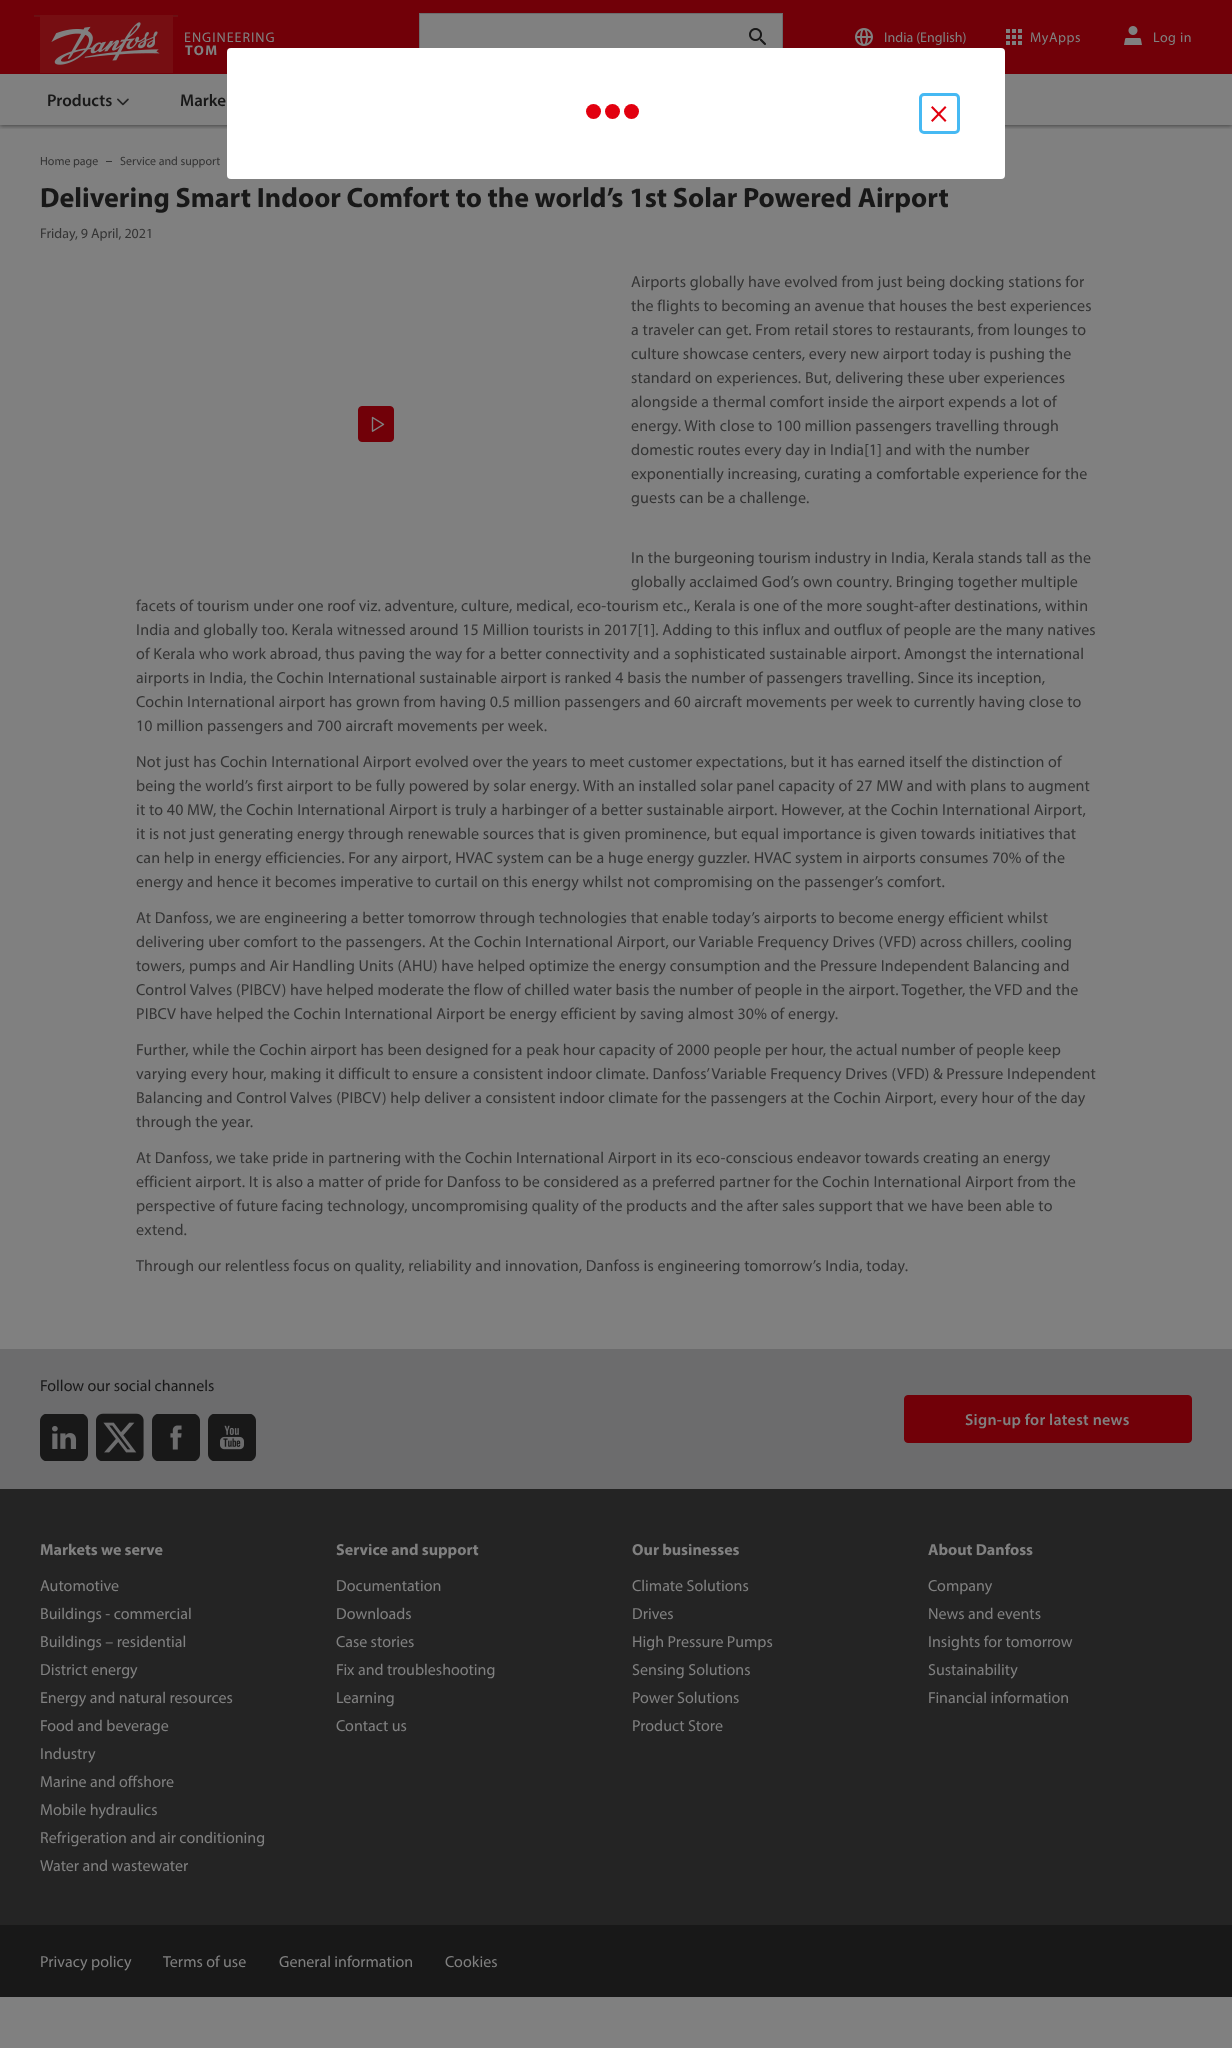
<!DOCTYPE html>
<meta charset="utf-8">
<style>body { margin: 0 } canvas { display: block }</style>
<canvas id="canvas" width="1232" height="2048"></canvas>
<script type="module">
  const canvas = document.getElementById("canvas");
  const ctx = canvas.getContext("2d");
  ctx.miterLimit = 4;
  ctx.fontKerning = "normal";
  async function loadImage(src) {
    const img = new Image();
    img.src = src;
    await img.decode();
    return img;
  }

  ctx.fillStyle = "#808080";
  ctx.fillRect(0, 0, 1232, 2048);
  ctx.save();
  ctx.beginPath();
  ctx.rect(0, 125, 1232, 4);
  ctx.clip();
  ctx.fillStyle = "rgba(0, 0, 0, 0.25)";
  ctx.filter = "blur(2px)";
  ctx.beginPath();
  ctx.rect(0, 1, 1232, 125);
  ctx.fill();
  ctx.filter = "none";
  ctx.filter = "blur(2px)";
  ctx.beginPath();
  ctx.rect(0, 75, 1232, 51);
  ctx.fill();
  ctx.filter = "none";
  ctx.restore();
  ctx.fillStyle = "#710008";
  ctx.fillRect(0, 0, 1232, 74);
  ctx.drawImage(await loadImage("img1.png"), 34, 15, 144, 58);
  ctx.letterSpacing = "1px";
  ctx.font = "14px Myriad";
  ctx.fillStyle = "#808080";
  ctx.fillText("ENGINEERING", 184, 42);
  ctx.letterSpacing = "1.5px";
  ctx.font = "bold 14px Myriad";
  ctx.fillText("TOM", 185, 55);
  ctx.fillRect(420, 14, 362, 34);
  ctx.strokeStyle = "#6c6c6d";
  ctx.strokeRect(419.5, 13.5, 363, 47);
  ctx.drawImage(await loadImage("img2.png"), 749, 28, 17, 17);
  ctx.drawImage(await loadImage("img3.png"), 855, 28, 18, 18);
  ctx.letterSpacing = "0px";
  ctx.font = "14px Myriad";
  ctx.fillText("India (English)", 884, 42);
  ctx.drawImage(await loadImage("img4.png"), 1006, 29, 16, 16);
  ctx.letterSpacing = "0.5px";
  ctx.fillText("MyApps", 1030, 42);
  ctx.drawImage(await loadImage("img5.png"), 1124, 26, 18, 19);
  ctx.fillText("Log in", 1153, 42);
  ctx.letterSpacing = "0px";
  ctx.font = "600 17px Myriad";
  ctx.fillStyle = "#181818";
  ctx.fillText("Products", 47, 106);
  ctx.drawImage(await loadImage("img6.png"), 117, 98, 12, 8);
  ctx.fillText("Marke", 180, 106);
  ctx.fillStyle = "#ffffff";
  ctx.beginPath();
  ctx.roundRect(227, 48, 778, 131, 4);
  ctx.fill();
  ctx.fillStyle = "#e2000f";
  ctx.beginPath();
  ctx.arc(593.5, 111.5, 7.5, 0, Math.PI * 2);
  ctx.fill();
  ctx.beginPath();
  ctx.arc(612.5, 111.5, 7.5, 0, Math.PI * 2);
  ctx.fill();
  ctx.beginPath();
  ctx.arc(631.5, 111.5, 7.5, 0, Math.PI * 2);
  ctx.fill();
  ctx.beginPath();
  ctx.roundRect(920.5, 94.5, 38, 38, 3.5);
  ctx.strokeStyle = "#46b9f3";
  ctx.lineWidth = 3;
  ctx.stroke();
  ctx.beginPath();
  ctx.moveTo(932.5, 106);
  ctx.lineTo(946.5, 120.5);
  ctx.lineTo(945, 122);
  ctx.lineTo(931, 107.5);
  ctx.closePath();
  ctx.fill();
  ctx.beginPath();
  ctx.moveTo(931, 120.5);
  ctx.lineTo(945, 106);
  ctx.lineTo(946.5, 107.5);
  ctx.lineTo(932.5, 122);
  ctx.closePath();
  ctx.fill();
  ctx.font = "12px Myriad";
  ctx.fillStyle = "#343434";
  ctx.fillText("Home page", 40, 165);
  ctx.fillRect(106, 161, 6, 1);
  ctx.fillText("Service and support", 120, 165);
  ctx.font = "bold 28px Myriad";
  ctx.fillStyle = "#181818";
  ctx.fillText("Delivering Smart Indoor Comfort to the world’s 1st Solar Powered Airport", 40, 207);
  ctx.font = "14px Myriad";
  ctx.fillStyle = "#343434";
  ctx.fillText("Friday, 9 April, 2021", 40, 238);
  ctx.letterSpacing = "0.16px";
  ctx.font = "16px Myriad";
  ctx.fillText("Airports globally have evolved from just being docking stations for", 631, 287);
  ctx.fillText("the flights to becoming an avenue that houses the best experiences", 631, 311);
  ctx.fillText("a traveler can get. From retail stores to restaurants, from lounges to", 631, 335);
  ctx.fillText("culture showcase centers, every new airport today is pushing the", 631, 359);
  ctx.fillText("standard on experiences. But, delivering these uber experiences", 631, 383);
  ctx.fillText("alongside a thermal comfort inside the airport expends a lot of", 631, 407);
  ctx.fillText("energy. With close to 100 million passengers travelling through", 631, 431);
  ctx.fillText("domestic routes every day in India[1] and with the number", 631, 455);
  ctx.fillText("exponentially increasing, curating a comfortable experience for the", 631, 479);
  ctx.fillText("guests can be a challenge.", 631, 503);
  ctx.fillText("In the burgeoning tourism industry in India, Kerala stands tall as the", 631, 563);
  ctx.fillText("globally acclaimed God’s own country. Bringing together multiple", 631, 587);
  ctx.fillText("facets of tourism under one roof viz. adventure, culture, medical, eco-tourism etc., Kerala is one of the more sought-after destinations, within", 136, 611);
  ctx.fillText("India and globally too. Kerala witnessed around 15 Million tourists in 2017[1]. Adding to this influx and outflux of people are the many natives", 136, 635);
  ctx.fillText("of Kerala who work abroad, thus paving the way for a better connectivity and a sophisticated sustainable airport. Amongst the international", 136, 659);
  ctx.fillText("airports in India, the Cochin International sustainable airport is ranked 4 basis the number of passengers travelling. Since its inception,", 136, 683);
  ctx.fillText("Cochin International airport has grown from having 0.5 million passengers and 60 aircraft movements per week to currently having close to", 136, 707);
  ctx.fillText("10 million passengers and 700 aircraft movements per week.", 136, 731);
  ctx.fillText("Not just has Cochin International Airport evolved over the years to meet customer expectations, but it has earned itself the distinction of", 136, 767);
  ctx.fillText("being the world’s first airport to be fully powered by solar energy. With an installed solar panel capacity of 27 MW and with plans to augment", 136, 791);
  ctx.fillText("it to 40 MW, the Cochin International Airport is truly a harbinger of a better sustainable airport. However, at the Cochin International Airport,", 136, 815);
  ctx.fillText("it is not just generating energy through renewable sources that is given prominence, but equal importance is given towards initiatives that", 136, 839);
  ctx.fillText("can help in energy efficiencies. For any airport, HVAC system can be a huge energy guzzler. HVAC system in airports consumes 70% of the", 136, 863);
  ctx.fillText("energy and hence it becomes imperative to curtail on this energy whilst not compromising on the passenger’s comfort.", 136, 887);
  ctx.fillText("At Danfoss, we are engineering a better tomorrow through technologies that enable today’s airports to become energy efficient whilst", 136, 923);
  ctx.fillText("delivering uber comfort to the passengers. At the Cochin International Airport, our Variable Frequency Drives (VFD) across chillers, cooling", 136, 947);
  ctx.fillText("towers, pumps and Air Handling Units (AHU) have helped optimize the energy consumption and the Pressure Independent Balancing and", 136, 971);
  ctx.fillText("Control Valves (PIBCV) have helped moderate the flow of chilled water basis the number of people in the airport. Together, the VFD and the", 136, 995);
  ctx.fillText("PIBCV have helped the Cochin International Airport be energy efficient by saving almost 30% of energy.", 136, 1019);
  ctx.fillText("Further, while the Cochin airport has been designed for a peak hour capacity of 2000 people per hour, the actual number of people keep", 136, 1055);
  ctx.fillText("varying every hour, making it difficult to ensure a consistent indoor climate. Danfoss’ Variable Frequency Drives (VFD) & Pressure Independent", 136, 1079);
  ctx.fillText("Balancing and Control Valves (PIBCV) help deliver a consistent indoor climate for the passengers at the Cochin Airport, every hour of the day", 136, 1103);
  ctx.fillText("through the year.", 136, 1127);
  ctx.fillText("At Danfoss, we take pride in partnering with the Cochin International Airport in its eco-conscious endeavor towards creating an energy", 136, 1163);
  ctx.fillText("efficient airport. It is also a matter of pride for Danfoss to be considered as a preferred partner for the Cochin International Airport from the", 136, 1187);
  ctx.fillText("perspective of future facing technology, uncompromising quality of the products and the after sales support that we have been able to", 136, 1211);
  ctx.fillText("extend.", 136, 1235);
  ctx.fillText("Through our relentless focus on quality, reliability and innovation, Danfoss is engineering tomorrow’s India, today.", 136, 1271);
  ctx.fillStyle = "#710008";
  ctx.beginPath();
  ctx.roundRect(358.5, 406.5, 35, 35, 3.5);
  ctx.fill();
  ctx.strokeStyle = "#710008";
  ctx.lineWidth = 1;
  ctx.stroke();
  ctx.drawImage(await loadImage("img7.png"), 371, 416, 14, 16);
  ctx.fillStyle = "#6c6c6d";
  ctx.fillRect(0, 1349, 1232, 140);
  ctx.letterSpacing = "0px";
  ctx.fillStyle = "#181818";
  ctx.fillText("Follow our social channels", 40, 1391);
  ctx.drawImage(await loadImage("img8.png"), 40, 1414, 48, 47);
  ctx.drawImage(await loadImage("img9.png"), 96, 1413, 48, 48);
  ctx.drawImage(await loadImage("img10.png"), 152, 1414, 48, 47);
  ctx.drawImage(await loadImage("img11.png"), 208, 1414, 48, 47);
  ctx.fillStyle = "#710008";
  ctx.beginPath();
  ctx.roundRect(904.5, 1395.5, 287, 47, 3.5);
  ctx.fill();
  ctx.stroke();
  ctx.letterSpacing = "0.3px";
  ctx.font = "600 16px Myriad";
  ctx.fillStyle = "#808080";
  ctx.fillText("Sign-up for latest news", 965, 1425);
  ctx.fillStyle = "#242424";
  ctx.fillRect(0, 1489, 1232, 436);
  ctx.letterSpacing = "0px";
  ctx.font = "bold 16px Myriad";
  ctx.fillStyle = "#808080";
  ctx.fillText("Markets we serve", 40, 1555);
  ctx.font = "16px Myriad";
  ctx.fillText("Automotive", 40, 1591);
  ctx.fillText("Buildings - commercial", 40, 1619);
  ctx.fillText("Buildings – residential", 40, 1647);
  ctx.fillText("District energy", 40, 1675);
  ctx.fillText("Energy and natural resources", 40, 1703);
  ctx.fillText("Food and beverage", 40, 1731);
  ctx.fillText("Industry", 40, 1759);
  ctx.fillText("Marine and offshore", 40, 1787);
  ctx.fillText("Mobile hydraulics", 40, 1815);
  ctx.fillText("Refrigeration and air conditioning", 40, 1843);
  ctx.fillText("Water and wastewater", 40, 1871);
  ctx.font = "bold 16px Myriad";
  ctx.fillText("Service and support", 336, 1555);
  ctx.font = "16px Myriad";
  ctx.fillText("Documentation", 336, 1591);
  ctx.fillText("Downloads", 336, 1619);
  ctx.fillText("Case stories", 336, 1647);
  ctx.fillText("Fix and troubleshooting", 336, 1675);
  ctx.fillText("Learning", 336, 1703);
  ctx.fillText("Contact us", 336, 1731);
  ctx.font = "bold 16px Myriad";
  ctx.fillText("Our businesses", 632, 1555);
  ctx.font = "16px Myriad";
  ctx.fillText("Climate Solutions", 632, 1591);
  ctx.fillText("Drives", 632, 1619);
  ctx.fillText("High Pressure Pumps", 632, 1647);
  ctx.fillText("Sensing Solutions", 632, 1675);
  ctx.fillText("Power Solutions", 632, 1703);
  ctx.fillText("Product Store", 632, 1731);
  ctx.font = "bold 16px Myriad";
  ctx.fillText("About Danfoss", 928, 1555);
  ctx.font = "16px Myriad";
  ctx.fillText("Company", 928, 1591);
  ctx.fillText("News and events", 928, 1619);
  ctx.fillText("Insights for tomorrow", 928, 1647);
  ctx.fillText("Sustainability", 928, 1675);
  ctx.fillText("Financial information", 928, 1703);
  ctx.fillStyle = "#181818";
  ctx.fillRect(0, 1925, 1232, 72);
  ctx.fillStyle = "#808080";
  ctx.fillText("Privacy policy", 40, 1967);
  ctx.fillText("Terms of use", 163, 1967);
  ctx.fillText("General information", 279, 1967);
  ctx.fillText("Cookies", 445, 1967);
</script>
